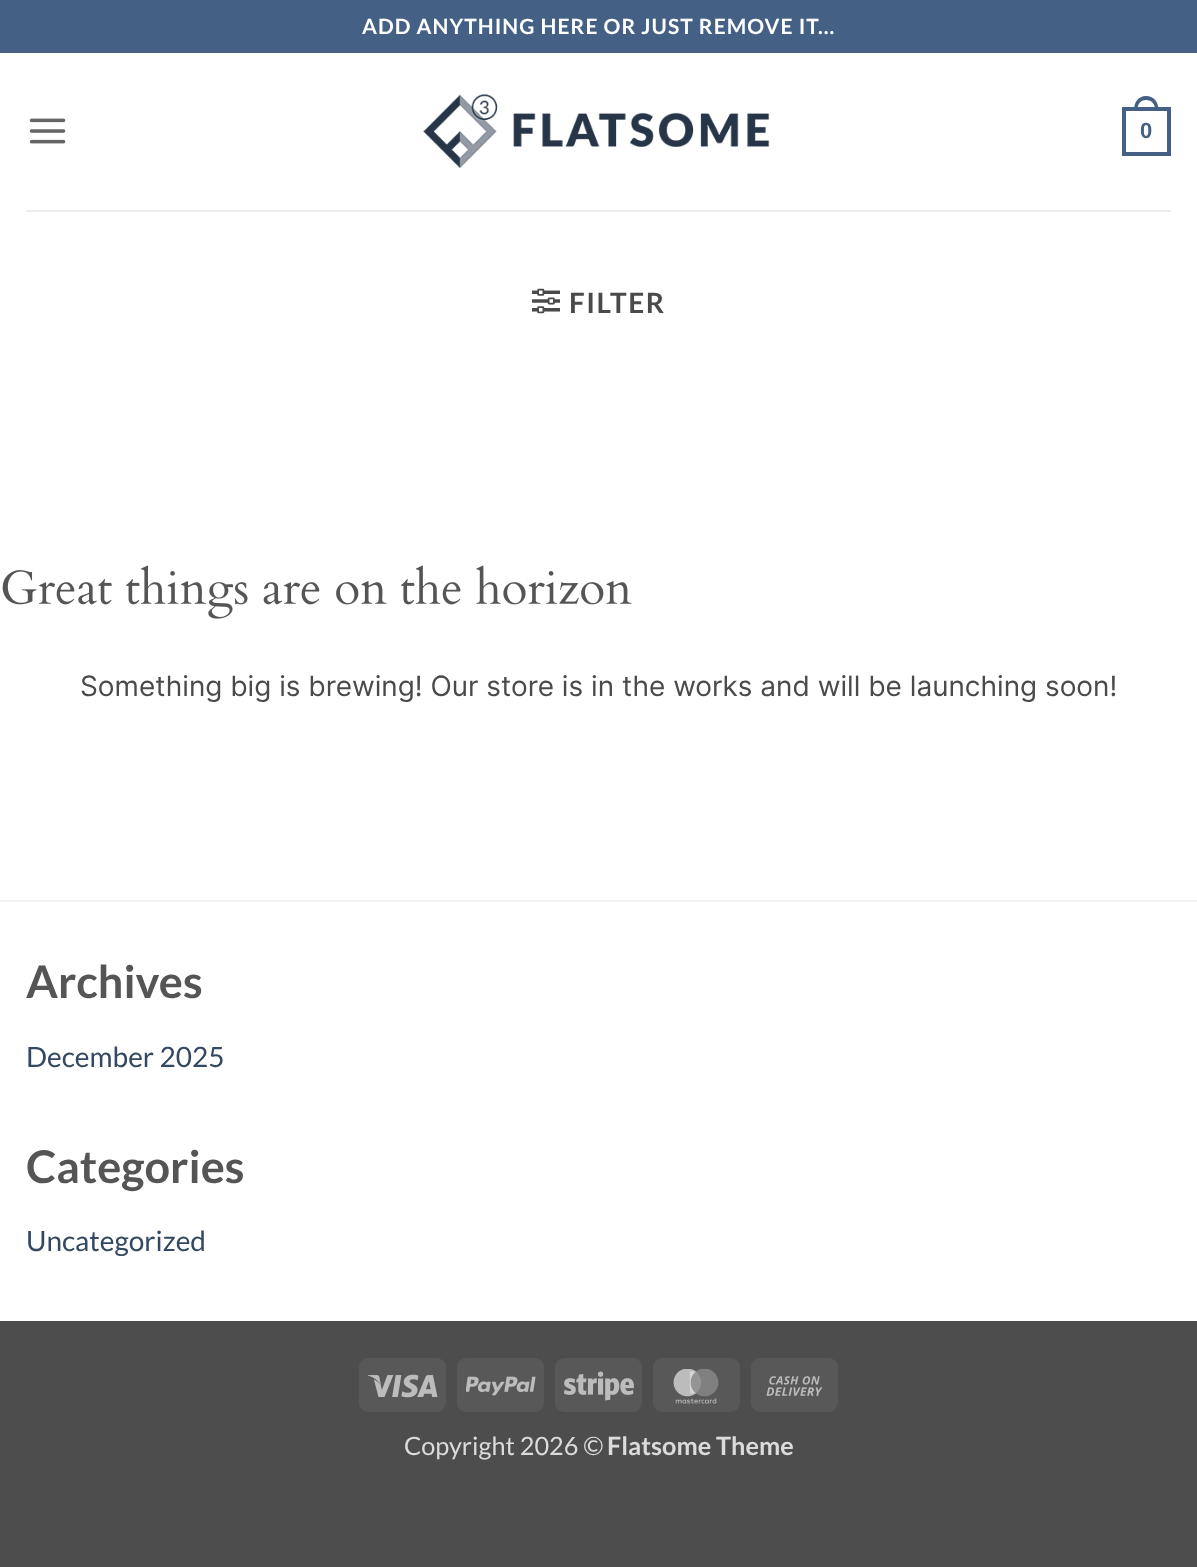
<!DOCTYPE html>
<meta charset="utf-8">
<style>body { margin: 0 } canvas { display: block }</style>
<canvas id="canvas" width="1197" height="1567"></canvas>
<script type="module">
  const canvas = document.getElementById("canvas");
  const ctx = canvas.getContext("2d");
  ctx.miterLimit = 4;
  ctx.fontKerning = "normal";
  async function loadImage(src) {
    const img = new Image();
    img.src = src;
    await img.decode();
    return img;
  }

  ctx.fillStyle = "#4d4d4d";
  ctx.fillRect(0, 0, 1197, 1567);
  ctx.fillStyle = "#ffffff";
  ctx.fillRect(0, 53, 1197, 1268);
  ctx.fillStyle = "#446084";
  ctx.fillRect(0, 0, 1197, 53);
  ctx.letterSpacing = "1.05px";
  ctx.font = "bold 21px Lato";
  ctx.fillStyle = "#ffffff";
  ctx.fillText("ADD ANYTHING HERE OR JUST REMOVE IT...", 362, 34);
  ctx.drawImage(await loadImage("img1.png"), 29, 118, 37, 26);
  ctx.drawImage(await loadImage("img2.png"), 423, 94, 347, 74);
  ctx.strokeStyle = "#446084";
  ctx.lineWidth = 4;
  ctx.strokeRect(1124, 109, 45, 45);
  ctx.fillStyle = "#446084";
  ctx.beginPath();
  ctx.moveTo(1146, 96);
  ctx.bezierCurveTo(1154.5, 96, 1158.5, 102.5, 1158.5, 110);
  ctx.lineTo(1134, 110);
  ctx.bezierCurveTo(1134, 102.5, 1138, 96, 1146, 96);
  ctx.closePath();
  ctx.moveTo(1146, 100);
  ctx.bezierCurveTo(1152.5, 100, 1155, 104.5, 1155, 110);
  ctx.lineTo(1137.5, 110);
  ctx.bezierCurveTo(1137.5, 104.5, 1140, 100, 1146, 100);
  ctx.closePath();
  ctx.fill("evenodd");
  ctx.letterSpacing = "0px";
  ctx.font = "bold 22px Liberation Sans";
  ctx.fillText("0", 1140, 138);
  ctx.fillStyle = "#ededed";
  ctx.fillRect(26, 210, 1145, 2);
  ctx.drawImage(await loadImage("img3.png"), 532, 288, 28, 26);
  ctx.letterSpacing = "1.5px";
  ctx.font = "bold 28px Lato";
  ctx.fillStyle = "#4a4a4a";
  ctx.fillText("FILTER", 569, 313);
  ctx.drawImage(await loadImage("img4.png"), 2, 565, 630, 54);
  ctx.letterSpacing = "0px";
  ctx.font = "28px Inter";
  ctx.fillText("Something big is brewing! Our store is in the works and will be launching soon!", 80, 696);
  ctx.fillStyle = "#f2f2f2";
  ctx.fillRect(0, 900, 1197, 2);
  ctx.font = "bold 45px Lato";
  ctx.fillStyle = "#555555";
  ctx.fillText("Archives", 26, 998);
  ctx.font = "28px Lato";
  ctx.fillStyle = "#334862";
  ctx.fillText("December 2025", 26, 1067);
  ctx.font = "bold 45px Lato";
  ctx.fillStyle = "#555555";
  ctx.fillText("Categories", 26, 1183);
  ctx.font = "28px Lato";
  ctx.fillStyle = "#334862";
  ctx.fillText("Uncategorized", 26, 1251);
  ctx.fillStyle = "#585858";
  ctx.beginPath();
  ctx.roundRect(359, 1358, 87, 54, 9);
  ctx.fill();
  ctx.drawImage(await loadImage("img5.png"), 368, 1374, 70, 24);
  ctx.beginPath();
  ctx.roundRect(457, 1358, 87, 54, 9);
  ctx.fill();
  ctx.drawImage(await loadImage("img6.png"), 466, 1376, 70, 20);
  ctx.beginPath();
  ctx.roundRect(555, 1358, 87, 54, 9);
  ctx.fill();
  ctx.drawImage(await loadImage("img7.png"), 564, 1371, 70, 30);
  ctx.beginPath();
  ctx.roundRect(653, 1358, 87, 54, 9);
  ctx.fill();
  ctx.drawImage(await loadImage("img8.png"), 673, 1369, 46, 35);
  ctx.beginPath();
  ctx.roundRect(751, 1358, 87, 54, 9);
  ctx.fill();
  ctx.drawImage(await loadImage("img9.png"), 766, 1376, 57, 20);
  ctx.font = "25.25px Lato";
  ctx.fillStyle = "#dbdbdb";
  ctx.fillText("Copyright 2026 ©", 404, 1455);
  ctx.font = "bold 25.25px Lato";
  ctx.fillText("Flatsome Theme", 607, 1455);
</script>
